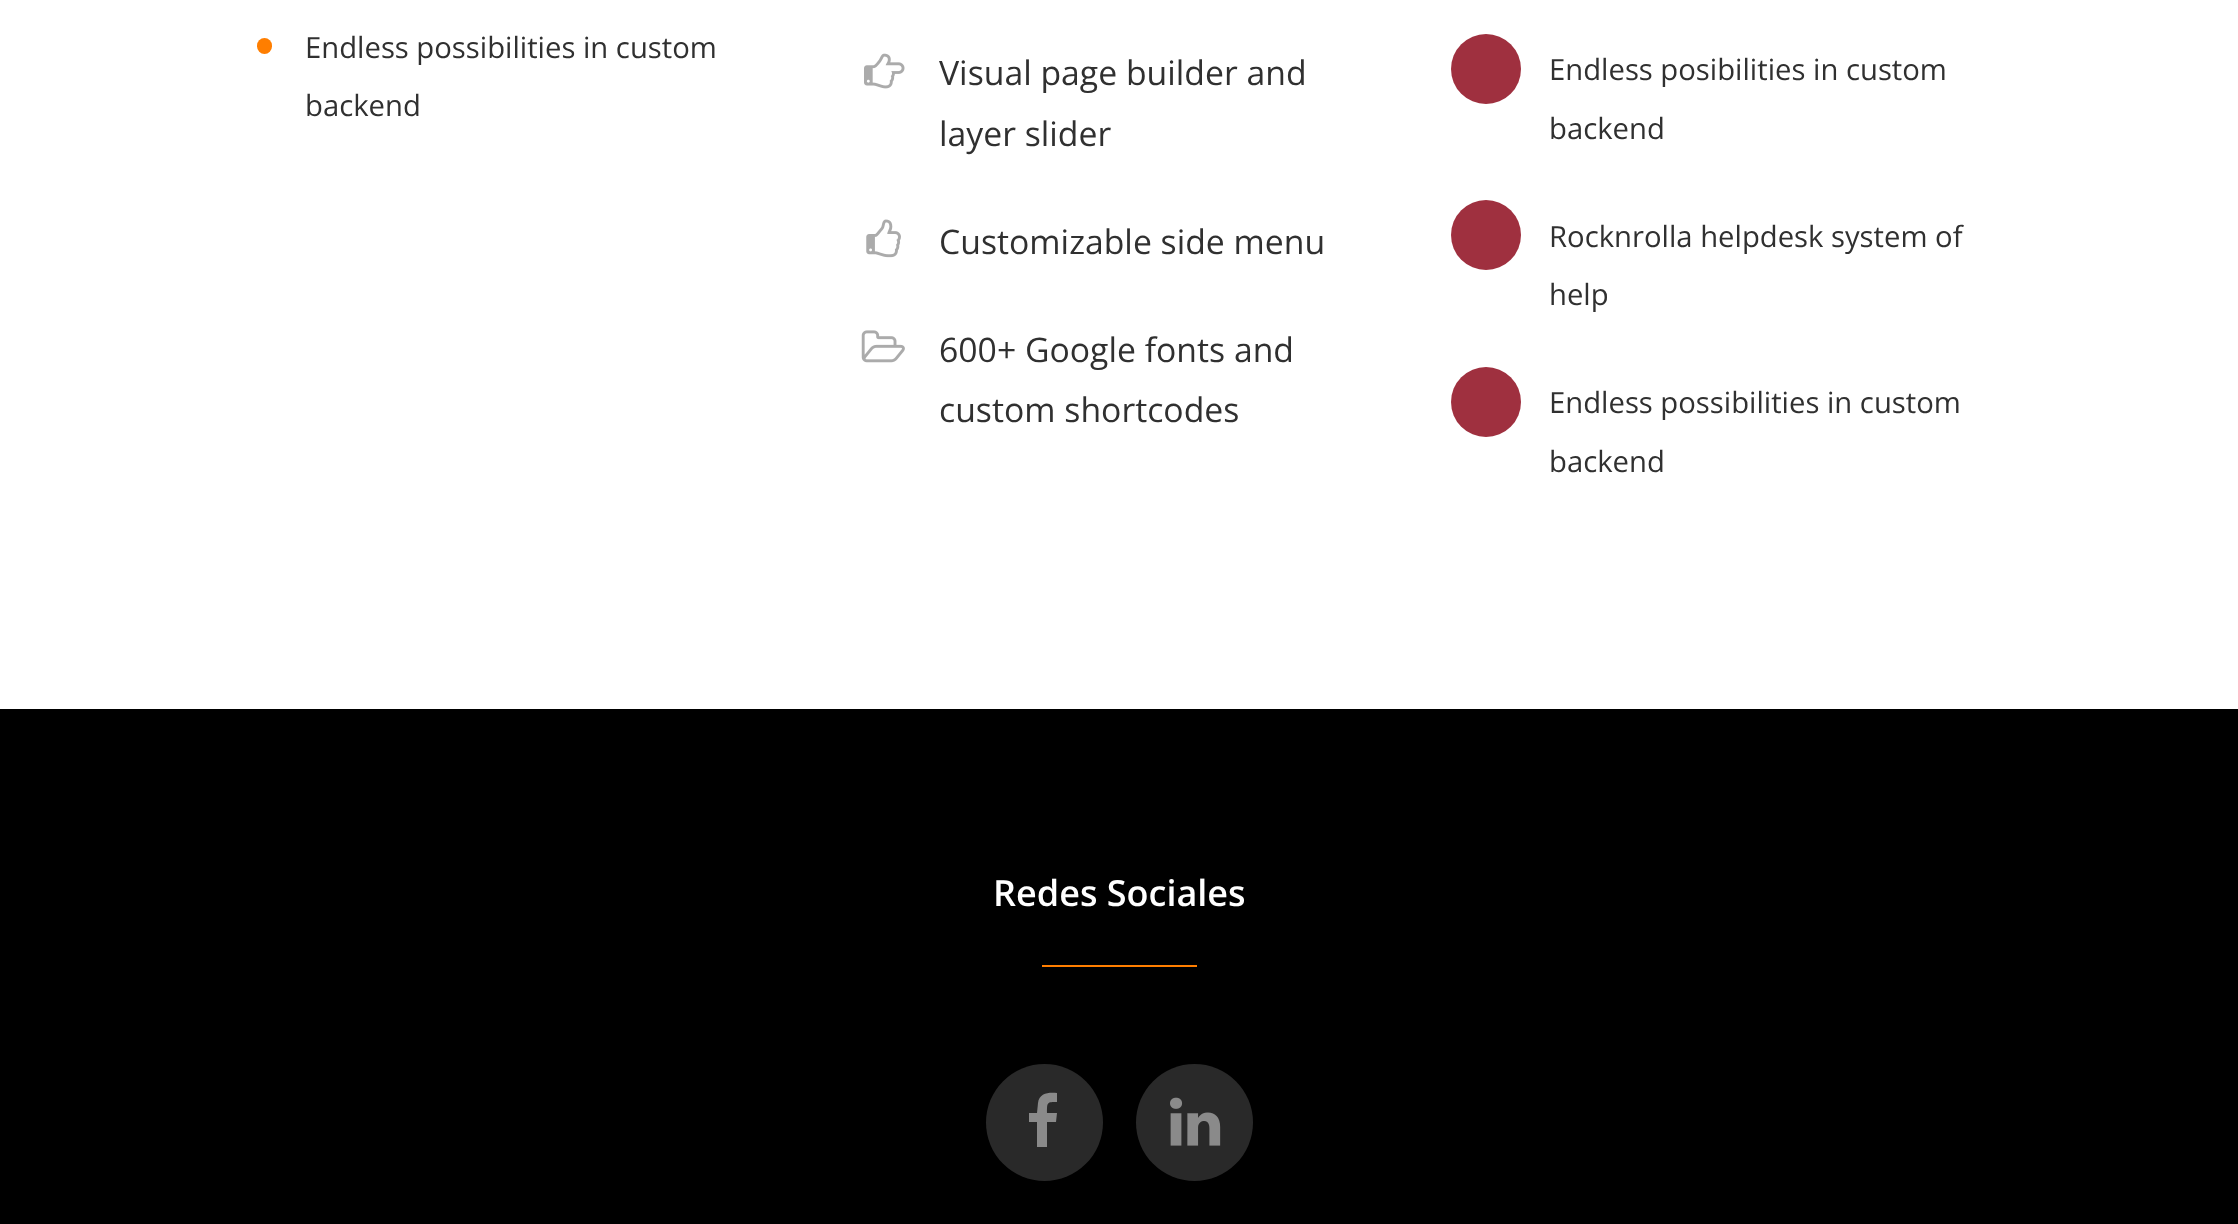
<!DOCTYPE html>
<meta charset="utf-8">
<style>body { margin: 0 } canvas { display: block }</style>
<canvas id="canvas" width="2238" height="1224"></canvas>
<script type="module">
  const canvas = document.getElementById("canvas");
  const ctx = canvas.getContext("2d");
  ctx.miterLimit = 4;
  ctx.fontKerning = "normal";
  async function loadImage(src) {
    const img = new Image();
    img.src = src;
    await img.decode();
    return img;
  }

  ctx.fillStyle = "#ffffff";
  ctx.fillRect(0, 0, 2238, 1224);
  ctx.fillStyle = "#ff7e00";
  ctx.beginPath();
  ctx.roundRect(257, 38, 15, 16, 7.5);
  ctx.fill();
  ctx.font = "29.25px Open Sans";
  ctx.fillStyle = "#303030";
  ctx.fillText("Endless possibilities in custom", 305, 58);
  ctx.fillText("backend", 305, 116);
  ctx.drawImage(await loadImage("img1.png"), 864, 53, 41, 36);
  ctx.font = "33.75px Open Sans";
  ctx.fillText("Visual page builder and", 939, 85);
  ctx.fillText("layer slider", 939, 146);
  ctx.drawImage(await loadImage("img2.png"), 866, 219, 35, 39);
  ctx.fillText("Customizable side menu", 939, 254);
  ctx.drawImage(await loadImage("img3.png"), 861, 330, 44, 33);
  ctx.fillText("600+ Google fonts and", 939, 362);
  ctx.fillText("custom shortcodes", 939, 422);
  ctx.fillStyle = "#9f303f";
  ctx.beginPath();
  ctx.arc(1486, 69, 35, 0, Math.PI * 2);
  ctx.fill();
  ctx.font = "29.25px Open Sans";
  ctx.fillStyle = "#303030";
  ctx.fillText("Endless posibilities in custom", 1549, 80);
  ctx.fillText("backend", 1549, 139);
  ctx.fillStyle = "#9f303f";
  ctx.beginPath();
  ctx.arc(1486, 235, 35, 0, Math.PI * 2);
  ctx.fill();
  ctx.fillStyle = "#303030";
  ctx.fillText("Rocknrolla helpdesk system of", 1549, 247);
  ctx.fillText("help", 1549, 305);
  ctx.fillStyle = "#9f303f";
  ctx.beginPath();
  ctx.arc(1486, 402, 35, 0, Math.PI * 2);
  ctx.fill();
  ctx.fillStyle = "#303030";
  ctx.fillText("Endless possibilities in custom", 1549, 413);
  ctx.fillText("backend", 1549, 472);
  ctx.fillStyle = "#000000";
  ctx.fillRect(0, 709, 2238, 515);
  ctx.font = "600 36px Open Sans";
  ctx.fillStyle = "#ffffff";
  ctx.fillText("Redes Sociales", 993, 906);
  ctx.fillStyle = "#ff7e00";
  ctx.fillRect(1042, 965, 155, 2);
  ctx.fillStyle = "#292929";
  ctx.beginPath();
  ctx.arc(1044.5, 1122.5, 58.5, 0, Math.PI * 2);
  ctx.fill();
  ctx.fillStyle = "#8a8a8a";
  ctx.beginPath();
  ctx.moveTo(1057, 1093);
  ctx.lineTo(1057, 1102);
  ctx.bezierCurveTo(1047, 1102, 1047, 1102, 1047, 1113);
  ctx.lineTo(1057, 1113);
  ctx.lineTo(1056, 1122);
  ctx.lineTo(1047, 1122);
  ctx.lineTo(1047, 1147);
  ctx.lineTo(1037, 1147);
  ctx.lineTo(1037, 1122);
  ctx.lineTo(1029, 1122);
  ctx.lineTo(1029, 1113);
  ctx.lineTo(1037, 1113);
  ctx.lineTo(1038, 1103);
  ctx.bezierCurveTo(1039, 1093, 1049, 1092, 1057, 1093);
  ctx.closePath();
  ctx.fill();
  ctx.fillStyle = "#292929";
  ctx.beginPath();
  ctx.arc(1194.5, 1122.5, 58.5, 0, Math.PI * 2);
  ctx.fill();
  ctx.drawImage(await loadImage("img4.png"), 1170, 1097, 51, 49);
</script>
